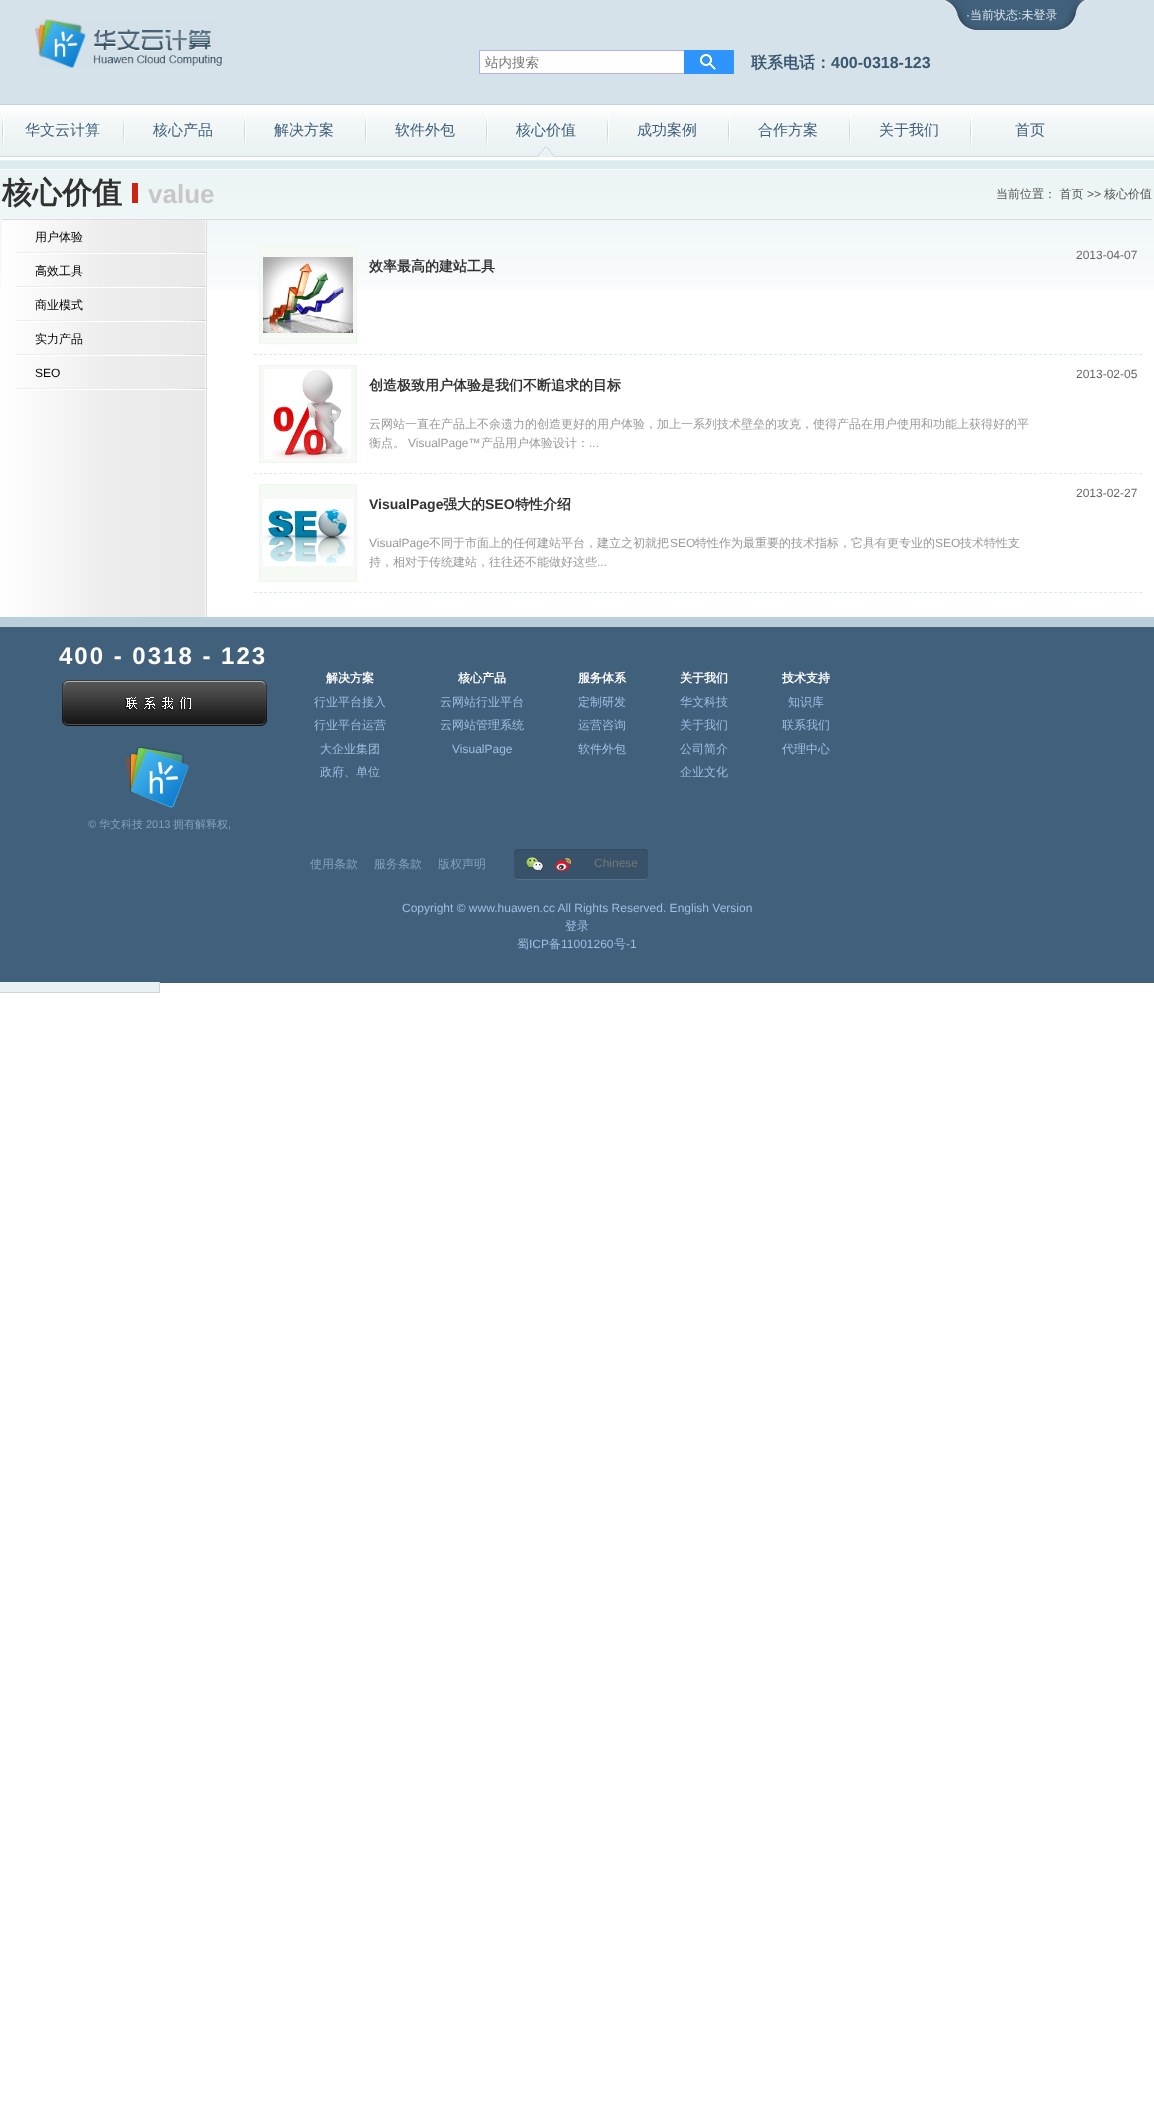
<!DOCTYPE html>
<meta charset="utf-8">
<style>body { margin: 0 } canvas { display: block }</style>
<canvas id="canvas" width="1154" height="2119"></canvas>
<script type="module">
  const canvas = document.getElementById("canvas");
  const ctx = canvas.getContext("2d");
  ctx.miterLimit = 4;
  ctx.fontKerning = "normal";
  async function loadImage(src) {
    const img = new Image();
    img.src = src;
    await img.decode();
    return img;
  }

  ctx.fillStyle = "#ffffff";
  ctx.fillRect(0, 0, 1154, 2119);
  ctx.fillStyle = "#d6e2e9";
  ctx.fillRect(0, 0, 1154, 104);
  ctx.drawImage(await loadImage("img1.png"), 1057, 0, 31, 30);
  ctx.drawImage(await loadImage("img2.png"), 1043, 0, 14, 30);
  ctx.drawImage(await loadImage("img3.png"), 943, 0, 100, 30);
  ctx.font = "500 12px WenQuanYi Zen Hei";
  ctx.fillText("当前状态 未登录", 970, 19);
  ctx.font = "12px Liberation Sans";
  ctx.fillText("·", 966, 19);
  ctx.fillText(":", 1018, 19);
  ctx.drawImage(await loadImage("img4.png"), 35, 19, 187, 49);
  ctx.fillStyle = "#ffffff";
  ctx.fillRect(480, 51, 204, 22);
  ctx.fillStyle = "#b3aff3";
  ctx.fillRect(479, 50, 205, 1);
  ctx.fillRect(479, 73, 205, 1);
  ctx.fillRect(479, 50, 1, 24);
  ctx.font = "500 13.5px WenQuanYi Zen Hei";
  ctx.fillStyle = "#777777";
  ctx.fillText("站内搜索", 485, 67);
  ctx.fillStyle = "#2e95ff";
  ctx.fillRect(684, 50, 50, 24);
  ctx.drawImage(await loadImage("img5.png"), 700, 54, 16, 16);
  ctx.font = "bold 16px WenQuanYi Zen Hei";
  ctx.fillStyle = "#3b5770";
  ctx.fillText("联系电话：", 751, 68);
  ctx.font = "bold 16px Liberation Sans";
  ctx.fillText("400-0318-123", 831, 68);
  ctx.drawImage(await loadImage("img6.png"), 0, 104, 1154, 53);
  ctx.drawImage(await loadImage("img7.png"), 2, 113, 2, 34);
  ctx.font = "500 15px WenQuanYi Zen Hei";
  ctx.fillStyle = "#41607b";
  ctx.fillText("华文云计算", 25, 135);
  ctx.drawImage(await loadImage("img7.png"), 123, 113, 2, 34);
  ctx.fillText("核心产品", 153, 135);
  ctx.drawImage(await loadImage("img7.png"), 244, 113, 2, 34);
  ctx.fillText("解决方案", 274, 135);
  ctx.drawImage(await loadImage("img7.png"), 365, 113, 2, 34);
  ctx.fillText("软件外包", 395, 135);
  ctx.drawImage(await loadImage("img7.png"), 486, 113, 2, 34);
  ctx.drawImage(await loadImage("img8.png"), 537, 146, 18, 11);
  ctx.fillText("核心价值", 516, 135);
  ctx.drawImage(await loadImage("img7.png"), 607, 113, 2, 34);
  ctx.fillText("成功案例", 637, 135);
  ctx.drawImage(await loadImage("img7.png"), 728, 113, 2, 34);
  ctx.fillText("合作方案", 758, 135);
  ctx.drawImage(await loadImage("img7.png"), 849, 113, 2, 34);
  ctx.fillText("关于我们", 879, 135);
  ctx.drawImage(await loadImage("img7.png"), 970, 113, 2, 34);
  ctx.fillText("首页", 1015, 135);
  ctx.drawImage(await loadImage("img9.png"), 0, 160, 1154, 130);
  ctx.fillStyle = "#dcdcdc";
  ctx.fillRect(2, 219, 1150, 1);
  ctx.font = "bold 30px WenQuanYi Zen Hei";
  ctx.fillStyle = "#323232";
  ctx.fillText("核心价值", 2, 203);
  ctx.fillStyle = "#cc2414";
  ctx.fillRect(132, 183, 6, 20);
  ctx.font = "bold 26px Liberation Sans";
  ctx.fillStyle = "#c8c7c7";
  ctx.fillText("value", 148, 203);
  ctx.font = "500 12px WenQuanYi Zen Hei";
  ctx.fillStyle = "#555555";
  ctx.fillText("当前位置： 首页", 996, 198);
  ctx.font = "12px Liberation Sans";
  ctx.fillText(">>", 1087, 198);
  ctx.font = "500 12px WenQuanYi Zen Hei";
  ctx.fillText("核心价值", 1104, 198);
  ctx.drawImage(await loadImage("img10.png"), 2, 220, 205, 397);
  ctx.drawImage(await loadImage("img11.png"), 16, 252, 190, 2);
  ctx.fillStyle = "#000000";
  ctx.fillText("用户体验", 35, 241);
  ctx.drawImage(await loadImage("img11.png"), 16, 286, 190, 2);
  ctx.fillText("高效工具", 35, 275);
  ctx.drawImage(await loadImage("img11.png"), 16, 320, 190, 2);
  ctx.fillText("商业模式", 35, 309);
  ctx.drawImage(await loadImage("img11.png"), 16, 354, 190, 2);
  ctx.fillText("实力产品", 35, 343);
  ctx.drawImage(await loadImage("img11.png"), 16, 388, 190, 2);
  ctx.font = "12px Liberation Sans";
  ctx.fillText("SEO", 35, 377);
  ctx.beginPath();
  ctx.moveTo(254, 354.5);
  ctx.lineTo(1142, 354.5);
  ctx.strokeStyle = "#ddeedd";
  ctx.setLineDash([3, 2]);
  ctx.stroke();
  ctx.fillStyle = "#f5faf5";
  ctx.beginPath();
  ctx.rect(259.5, 246.5, 97, 97);
  ctx.fill();
  ctx.strokeStyle = "#f0f5f0";
  ctx.setLineDash([]);
  ctx.stroke();
  ctx.drawImage(await loadImage("img12.png"), 263, 257, 90, 76);
  ctx.fillStyle = "#666666";
  ctx.fillText("2013-04-07", 1076, 259);
  ctx.font = "bold 14px WenQuanYi Zen Hei";
  ctx.fillStyle = "#323232";
  ctx.fillText("效率最高的建站工具", 369, 271);
  ctx.beginPath();
  ctx.moveTo(254, 473.5);
  ctx.lineTo(1142, 473.5);
  ctx.strokeStyle = "#ddeedd";
  ctx.setLineDash([3, 2]);
  ctx.stroke();
  ctx.fillStyle = "#f5faf5";
  ctx.beginPath();
  ctx.rect(259.5, 365.5, 97, 97);
  ctx.fill();
  ctx.strokeStyle = "#f0f5f0";
  ctx.setLineDash([]);
  ctx.stroke();
  ctx.drawImage(await loadImage("img13.png"), 264, 369, 87, 90);
  ctx.font = "12px Liberation Sans";
  ctx.fillStyle = "#666666";
  ctx.fillText("2013-02-05", 1076, 378);
  ctx.font = "bold 14px WenQuanYi Zen Hei";
  ctx.fillStyle = "#323232";
  ctx.fillText("创造极致用户体验是我们不断追求的目标", 369, 390);
  ctx.font = "500 12px WenQuanYi Zen Hei";
  ctx.fillStyle = "#999999";
  ctx.fillText("云网站一直在产品上不余遗力的创造更好的用户体验，加上一系列技术壁垒的攻克，使得产品在用户使用和功能上获得好的平", 369, 428);
  ctx.fillText("衡点。", 369, 447);
  ctx.font = "12px Liberation Sans";
  ctx.fillText("VisualPage™", 408, 447);
  ctx.font = "500 12px WenQuanYi Zen Hei";
  ctx.fillText("产品用户体验设计：", 481, 447);
  ctx.font = "12px Liberation Sans";
  ctx.fillText("...", 589, 447);
  ctx.beginPath();
  ctx.moveTo(254, 592.5);
  ctx.lineTo(1142, 592.5);
  ctx.strokeStyle = "#ddeedd";
  ctx.setLineDash([3, 2]);
  ctx.stroke();
  ctx.fillStyle = "#f5faf5";
  ctx.beginPath();
  ctx.rect(259.5, 484.5, 97, 97);
  ctx.fill();
  ctx.strokeStyle = "#f0f5f0";
  ctx.setLineDash([]);
  ctx.stroke();
  ctx.drawImage(await loadImage("img14.png"), 263, 499, 90, 67);
  ctx.fillStyle = "#666666";
  ctx.fillText("2013-02-27", 1076, 497);
  ctx.font = "bold 14px Liberation Sans";
  ctx.fillStyle = "#323232";
  ctx.fillText("VisualPage", 369, 509);
  ctx.font = "bold 14px WenQuanYi Zen Hei";
  ctx.fillText("强大的", 443, 509);
  ctx.font = "bold 14px Liberation Sans";
  ctx.fillText("SEO", 485, 509);
  ctx.font = "bold 14px WenQuanYi Zen Hei";
  ctx.fillText("特性介绍", 515, 509);
  ctx.font = "12px Liberation Sans";
  ctx.fillStyle = "#999999";
  ctx.fillText("VisualPage", 369, 547);
  ctx.font = "500 12px WenQuanYi Zen Hei";
  ctx.fillText("不同于市面上的任何建站平台，建立之初就把", 429, 547);
  ctx.font = "12px Liberation Sans";
  ctx.fillText("SEO", 670, 547);
  ctx.font = "500 12px WenQuanYi Zen Hei";
  ctx.fillText("特性作为最重要的技术指标，它具有更专业的", 695, 547);
  ctx.font = "12px Liberation Sans";
  ctx.fillText("SEO", 935, 547);
  ctx.font = "500 12px WenQuanYi Zen Hei";
  ctx.fillText("技术特性支", 960, 547);
  ctx.fillText("持，相对于传统建站，往往还不能做好这些", 369, 566);
  ctx.font = "12px Liberation Sans";
  ctx.fillText("...", 597, 566);
  ctx.fillStyle = "#41607b";
  ctx.fillRect(0, 627, 1154, 356);
  ctx.fillStyle = "#bacfda";
  ctx.fillRect(0, 617, 1154, 10);
  ctx.letterSpacing = "2px";
  ctx.font = "bold 24px Liberation Sans";
  ctx.fillStyle = "#ffffff";
  ctx.fillText("400 - 0318 - 123", 59, 664);
  ctx.drawImage(await loadImage("img15.png"), 62, 680, 205, 46);
  ctx.drawImage(await loadImage("img16.png"), 125, 746, 64, 62);
  ctx.letterSpacing = "0px";
  ctx.font = "11px Liberation Sans";
  ctx.fillStyle = "#82a1bd";
  ctx.fillText("©", 88, 828);
  ctx.font = "500 11px WenQuanYi Zen Hei";
  ctx.fillText("华文科技", 99, 828);
  ctx.font = "11px Liberation Sans";
  ctx.fillText("2013", 146, 828);
  ctx.font = "500 11px WenQuanYi Zen Hei";
  ctx.fillText("拥有解释权", 173, 828);
  ctx.font = "11px Liberation Sans";
  ctx.fillText(",", 228, 828);
  ctx.font = "bold 12px WenQuanYi Zen Hei";
  ctx.fillStyle = "#ffffff";
  ctx.fillText("解决方案", 326, 682);
  ctx.font = "500 12px WenQuanYi Zen Hei";
  ctx.fillStyle = "#9ebee3";
  ctx.fillText("行业平台接入", 314, 706);
  ctx.fillText("行业平台运营", 314, 729);
  ctx.fillText("大企业集团", 320, 753);
  ctx.fillText("政府、单位", 320, 776);
  ctx.font = "bold 12px WenQuanYi Zen Hei";
  ctx.fillStyle = "#ffffff";
  ctx.fillText("核心产品", 458, 682);
  ctx.font = "500 12px WenQuanYi Zen Hei";
  ctx.fillStyle = "#9ebee3";
  ctx.fillText("云网站行业平台", 440, 706);
  ctx.fillText("云网站管理系统", 440, 729);
  ctx.font = "12px Liberation Sans";
  ctx.fillText("VisualPage", 452, 753);
  ctx.font = "bold 12px WenQuanYi Zen Hei";
  ctx.fillStyle = "#ffffff";
  ctx.fillText("服务体系", 578, 682);
  ctx.font = "500 12px WenQuanYi Zen Hei";
  ctx.fillStyle = "#9ebee3";
  ctx.fillText("定制研发", 578, 706);
  ctx.fillText("运营咨询", 578, 729);
  ctx.fillText("软件外包", 578, 753);
  ctx.font = "bold 12px WenQuanYi Zen Hei";
  ctx.fillStyle = "#ffffff";
  ctx.fillText("关于我们", 680, 682);
  ctx.font = "500 12px WenQuanYi Zen Hei";
  ctx.fillStyle = "#9ebee3";
  ctx.fillText("华文科技", 680, 706);
  ctx.fillText("关于我们", 680, 729);
  ctx.fillText("公司简介", 680, 753);
  ctx.fillText("企业文化", 680, 776);
  ctx.font = "bold 12px WenQuanYi Zen Hei";
  ctx.fillStyle = "#ffffff";
  ctx.fillText("技术支持", 782, 682);
  ctx.font = "500 12px WenQuanYi Zen Hei";
  ctx.fillStyle = "#9ebee3";
  ctx.fillText("知识库", 788, 706);
  ctx.fillText("联系我们", 782, 729);
  ctx.fillText("代理中心", 782, 753);
  ctx.fillStyle = "#82a1bd";
  ctx.fillText("使用条款", 310, 868);
  ctx.fillText("服务条款", 374, 868);
  ctx.fillText("版权声明", 438, 868);
  ctx.fillStyle = "#547088";
  ctx.beginPath();
  ctx.moveTo(514, 875);
  ctx.lineTo(514, 876);
  ctx.bezierCurveTo(514, 878, 516, 880, 518, 880);
  ctx.lineTo(644, 880);
  ctx.bezierCurveTo(646, 880, 648, 878, 648, 876);
  ctx.lineTo(648, 875);
  ctx.bezierCurveTo(648, 877, 646, 879, 644, 879);
  ctx.lineTo(518, 879);
  ctx.bezierCurveTo(516, 879, 514, 877, 514, 875);
  ctx.closePath();
  ctx.fill();
  ctx.fillStyle = "#375269";
  ctx.beginPath();
  ctx.roundRect(514, 849, 134, 30, 4);
  ctx.fill();
  ctx.fillStyle = "#314a5e";
  ctx.beginPath();
  ctx.moveTo(518, 850);
  ctx.lineTo(644, 850);
  ctx.bezierCurveTo(646, 850, 648, 852, 648, 854);
  ctx.lineTo(648, 853);
  ctx.bezierCurveTo(648, 851, 646, 849, 644, 849);
  ctx.lineTo(518, 849);
  ctx.bezierCurveTo(516, 849, 514, 851, 514, 853);
  ctx.lineTo(514, 854);
  ctx.bezierCurveTo(514, 852, 516, 850, 518, 850);
  ctx.closePath();
  ctx.fill();
  ctx.drawImage(await loadImage("img17.png"), 526, 857, 18, 15);
  ctx.drawImage(await loadImage("img18.png"), 555, 858, 16, 13);
  ctx.font = "12px Liberation Sans";
  ctx.fillStyle = "#777777";
  ctx.fillText("Chinese", 594, 867);
  ctx.fillStyle = "#9ebee3";
  ctx.fillText("Copyright © www.huawen.cc All Rights Reserved. English Version", 402, 912);
  ctx.font = "500 12px WenQuanYi Zen Hei";
  ctx.fillText("登录", 565, 930);
  ctx.fillText("蜀", 517, 948);
  ctx.font = "12px Liberation Sans";
  ctx.fillText("ICP", 529, 948);
  ctx.font = "500 12px WenQuanYi Zen Hei";
  ctx.fillText("备", 549, 948);
  ctx.font = "12px Liberation Sans";
  ctx.fillText("11001260", 561, 948);
  ctx.font = "500 12px WenQuanYi Zen Hei";
  ctx.fillText("号", 614, 948);
  ctx.font = "12px Liberation Sans";
  ctx.fillText("-1", 626, 948);
  ctx.fillStyle = "#eaf1f2";
  ctx.fillRect(0, 982, 159, 10);
  ctx.fillStyle = "#cbd7de";
  ctx.fillRect(159, 982, 1, 11);
  ctx.fillRect(0, 992, 160, 1);
</script>
